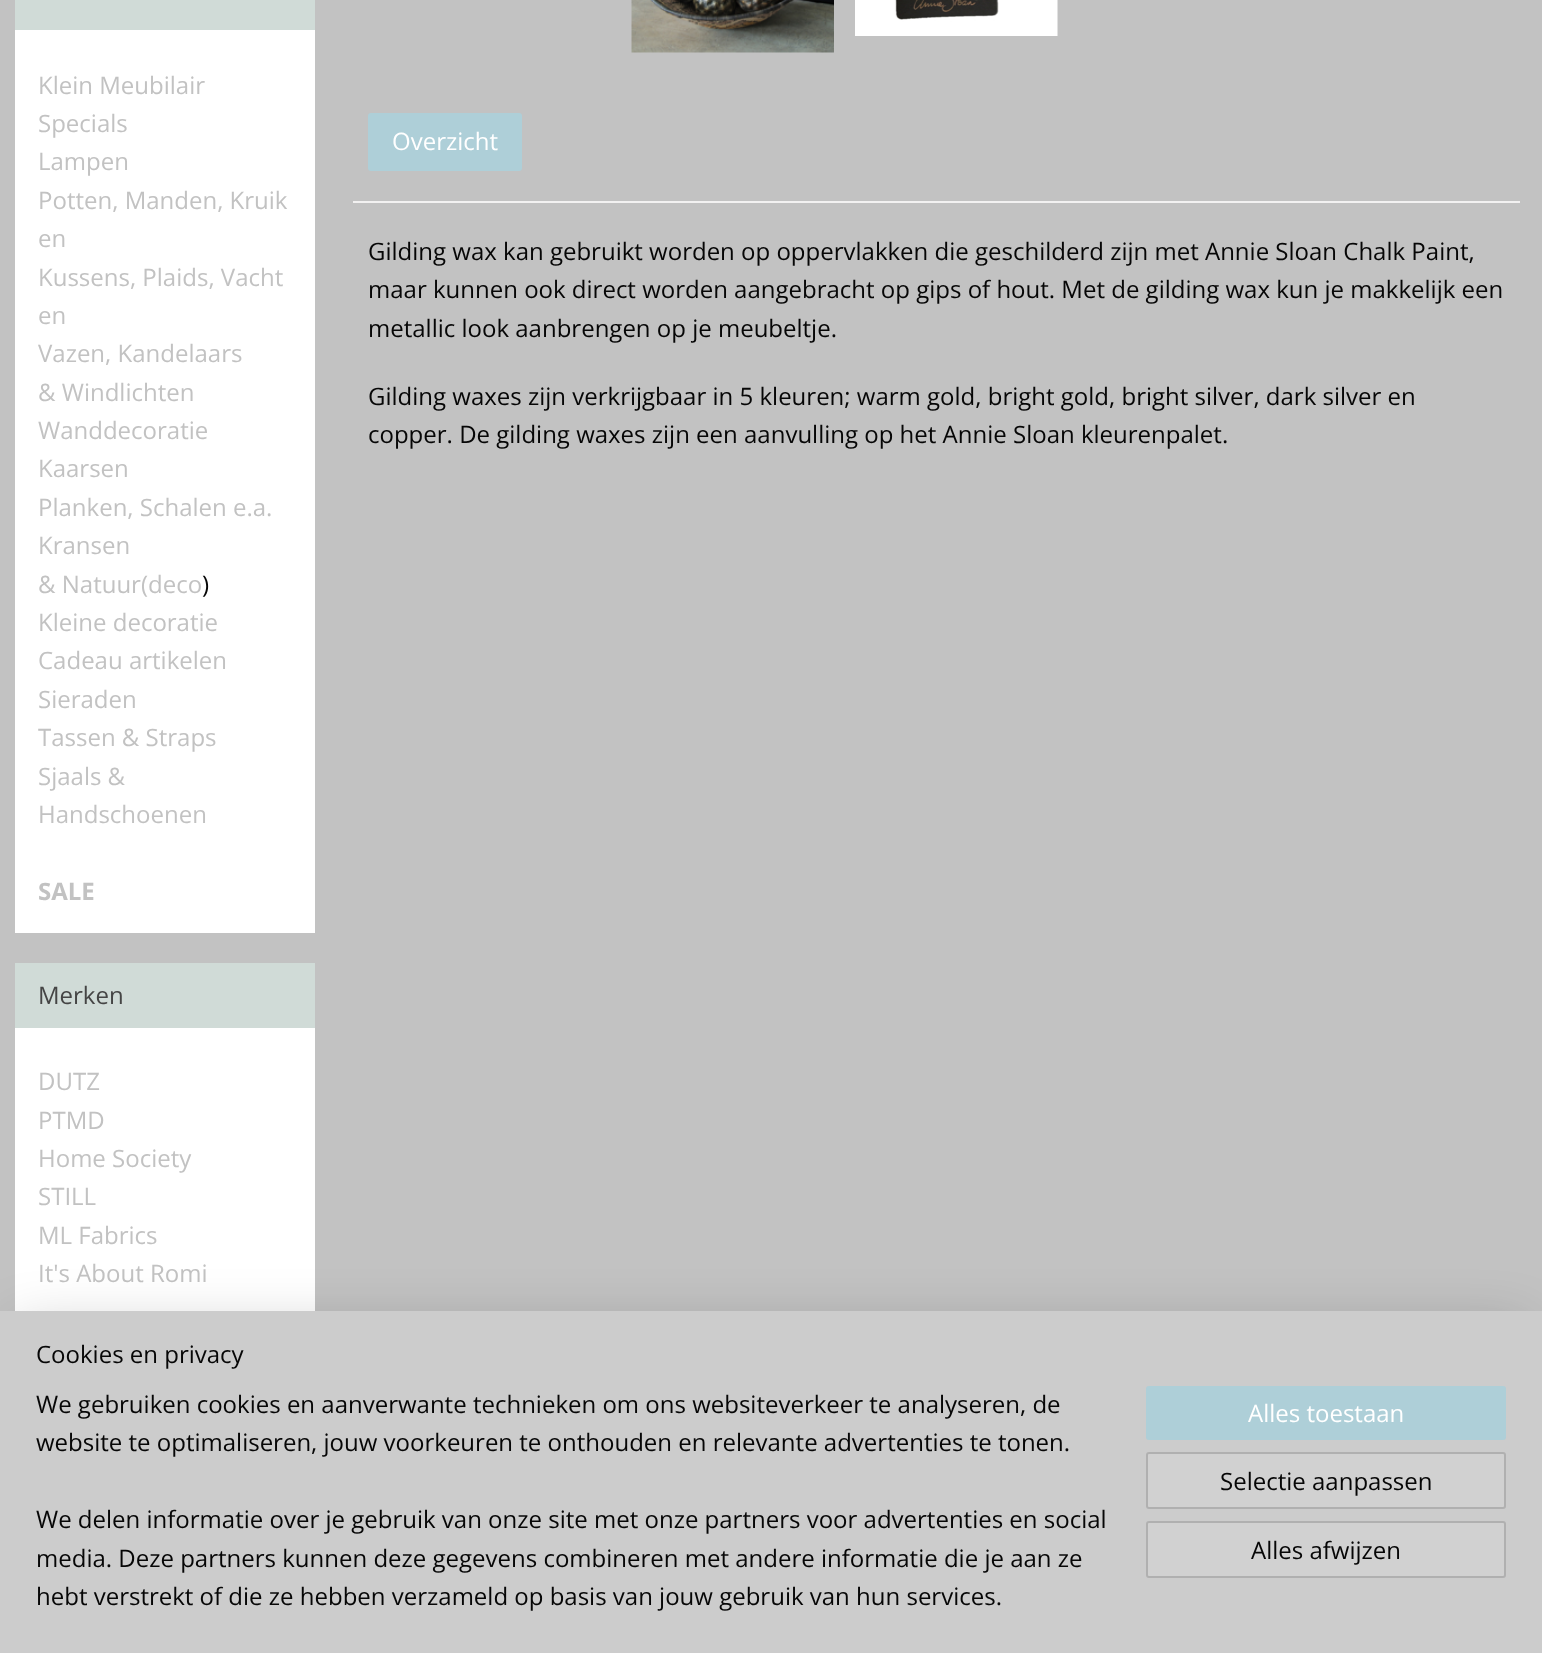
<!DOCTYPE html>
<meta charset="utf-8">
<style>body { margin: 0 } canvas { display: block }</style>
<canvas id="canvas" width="1542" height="1653"></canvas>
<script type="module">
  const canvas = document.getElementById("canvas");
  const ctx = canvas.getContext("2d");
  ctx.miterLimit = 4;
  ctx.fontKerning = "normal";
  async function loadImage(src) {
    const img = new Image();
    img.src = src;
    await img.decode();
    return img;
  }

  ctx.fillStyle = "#c2c2c2";
  ctx.fillRect(0, 0, 1542, 1653);
  ctx.fillStyle = "#ffffff";
  ctx.fillRect(15, 30, 300, 903);
  ctx.fillStyle = "#d0dbd7";
  ctx.fillRect(15, 0, 300, 30);
  ctx.font = "24px Open Sans";
  ctx.fillStyle = "#c2c2c2";
  ctx.fillText("Klein Meubilair", 38, 94);
  ctx.fillText("Specials", 38, 132);
  ctx.fillText("Lampen", 38, 170);
  ctx.fillText("Potten, Manden, Kruik", 38, 209);
  ctx.fillText("en", 38, 247);
  ctx.fillText("Kussens, Plaids, Vacht", 38, 286);
  ctx.fillText("en", 38, 324);
  ctx.fillText("Vazen, Kandelaars", 38, 362);
  ctx.fillText("& Windlichten", 38, 401);
  ctx.fillText("Wanddecoratie", 38, 439);
  ctx.fillText("Kaarsen", 38, 477);
  ctx.fillText("Planken, Schalen e.a.", 38, 516);
  ctx.fillText("Kransen", 38, 554);
  ctx.fillText("& Natuur(deco", 38, 593);
  ctx.fillStyle = "#060606";
  ctx.fillText(")", 202, 593);
  ctx.fillStyle = "#c2c2c2";
  ctx.fillText("Kleine decoratie", 38, 631);
  ctx.fillText("Cadeau artikelen", 38, 669);
  ctx.fillText("Sieraden", 38, 708);
  ctx.fillText("Tassen & Straps", 38, 746);
  ctx.fillText("Sjaals &", 38, 785);
  ctx.fillText("Handschoenen", 38, 823);
  ctx.font = "bold 24px Open Sans";
  ctx.fillText("SALE", 38, 900);
  ctx.fillStyle = "#ffffff";
  ctx.fillRect(15, 1028, 300, 283);
  ctx.fillStyle = "#d0dbd7";
  ctx.fillRect(15, 963, 300, 65);
  ctx.font = "24px Open Sans";
  ctx.fillStyle = "#454545";
  ctx.fillText("Merken", 38, 1004);
  ctx.fillStyle = "#c2c2c2";
  ctx.fillText("DUTZ", 38, 1090);
  ctx.fillText("PTMD", 38, 1129);
  ctx.fillText("Home Society", 38, 1167);
  ctx.fillText("STILL", 38, 1205);
  ctx.fillText("ML Fabrics", 38, 1244);
  ctx.fillText("It's About Romi", 38, 1282);
  ctx.drawImage(await loadImage("img1.png"), 631, 0, 203, 53);
  ctx.drawImage(await loadImage("img2.png"), 855, 0, 203, 36);
  ctx.fillStyle = "#aecfd8";
  ctx.beginPath();
  ctx.roundRect(368, 113, 154, 58, 3);
  ctx.fill();
  ctx.fillStyle = "#ffffff";
  ctx.fillText("Overzicht", 392, 150);
  ctx.fillStyle = "#f2f1f1";
  ctx.fillRect(353, 201, 1167, 2);
  ctx.fillStyle = "#060606";
  ctx.fillText("Gilding wax kan gebruikt worden op oppervlakken die geschilderd zijn met Annie Sloan Chalk Paint,", 368, 260);
  ctx.fillText("maar kunnen ook direct worden aangebracht op gips of hout. Met de gilding wax kun je makkelijk een", 368, 298);
  ctx.fillText("metallic look aanbrengen op je meubeltje.", 368, 337);
  ctx.fillText("Gilding waxes zijn verkrijgbaar in 5 kleuren; warm gold, bright gold, bright silver, dark silver en", 368, 405);
  ctx.fillText("copper. De gilding waxes zijn een aanvulling op het Annie Sloan kleurenpalet.", 368, 443);
  ctx.fillStyle = "rgba(0, 0, 0, 0.2)";
  ctx.filter = "blur(27px)";
  ctx.beginPath();
  ctx.rect(15, 1326, 1512, 312);
  ctx.fill();
  ctx.filter = "none";
  ctx.fillStyle = "#cccccc";
  ctx.fillRect(0, 1311, 1542, 342);
  ctx.fillStyle = "#060606";
  ctx.fillText("Cookies en privacy", 36, 1363);
  ctx.fillText("We gebruiken cookies en aanverwante technieken om ons websiteverkeer te analyseren, de", 36, 1413);
  ctx.fillText("website te optimaliseren, jouw voorkeuren te onthouden en relevante advertenties te tonen.", 36, 1451);
  ctx.fillText("We delen informatie over je gebruik van onze site met onze partners voor advertenties en social", 36, 1528);
  ctx.fillText("media. Deze partners kunnen deze gegevens combineren met andere informatie die je aan ze", 36, 1567);
  ctx.fillText("hebt verstrekt of die ze hebben verzameld op basis van jouw gebruik van hun services.", 36, 1605);
  ctx.fillStyle = "#aecfd8";
  ctx.beginPath();
  ctx.roundRect(1146, 1386, 360, 54, 3);
  ctx.fill();
  ctx.fillStyle = "#ffffff";
  ctx.fillText("Alles toestaan", 1248, 1422);
  ctx.fillStyle = "#d1d1d1";
  ctx.beginPath();
  ctx.roundRect(1147, 1453, 358, 55, 2);
  ctx.fill();
  ctx.strokeStyle = "#b0b0b0";
  ctx.lineWidth = 2;
  ctx.stroke();
  ctx.fillStyle = "#060606";
  ctx.fillText("Selectie aanpassen", 1220, 1490);
  ctx.fillStyle = "#d1d1d1";
  ctx.beginPath();
  ctx.roundRect(1147, 1522, 358, 55, 2);
  ctx.fill();
  ctx.stroke();
  ctx.fillStyle = "#060606";
  ctx.fillText("Alles afwijzen", 1251, 1559);
</script>
